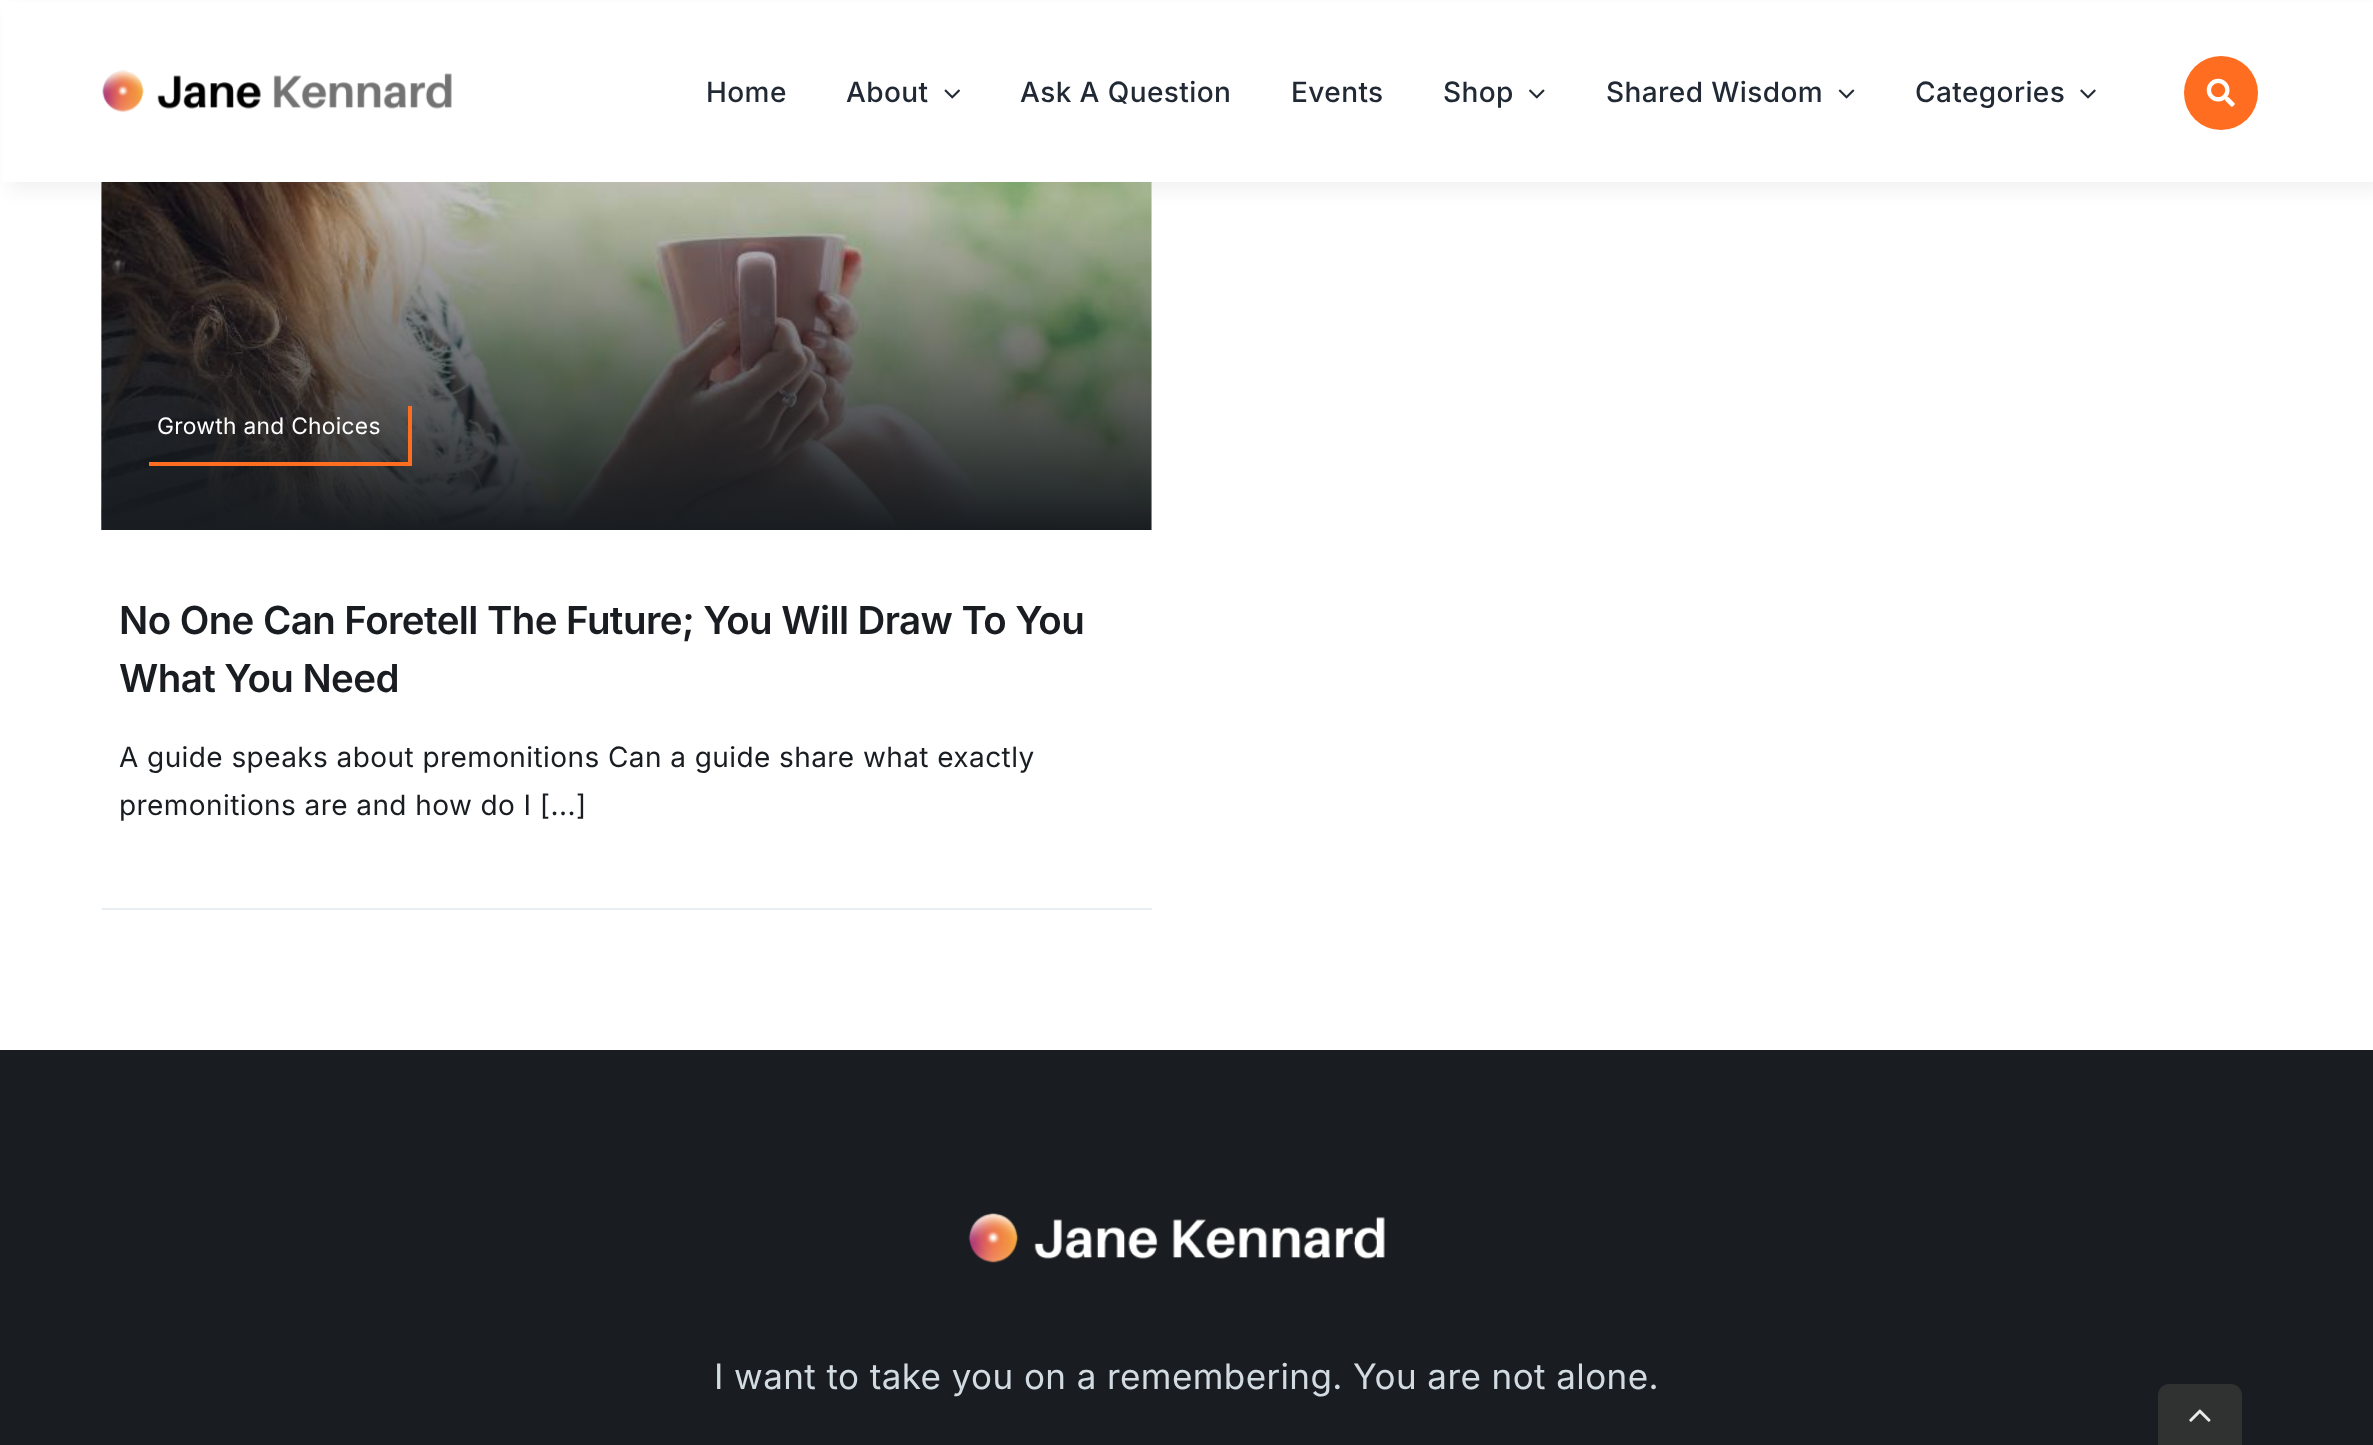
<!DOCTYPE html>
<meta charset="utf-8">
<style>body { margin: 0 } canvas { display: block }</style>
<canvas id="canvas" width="2373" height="1445"></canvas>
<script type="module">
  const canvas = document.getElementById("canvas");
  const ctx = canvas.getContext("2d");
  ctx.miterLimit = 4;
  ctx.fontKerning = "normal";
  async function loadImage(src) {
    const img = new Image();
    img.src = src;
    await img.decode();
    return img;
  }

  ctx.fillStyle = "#ffffff";
  ctx.fillRect(0, 0, 2373, 1445);
  ctx.drawImage(await loadImage("img7.png"), 101, 182, 1051, 348);
  ctx.fillStyle = "rgba(2, 3, 3, 0.05)";
  ctx.filter = "blur(9px)";
  ctx.beginPath();
  ctx.rect(9, 9, 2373, 182);
  ctx.fill();
  ctx.filter = "none";
  ctx.fillStyle = "#ffffff";
  ctx.fillRect(2, 2, 2371, 180);
  ctx.drawImage(await loadImage("img1.png"), 102, 70, 350, 43);
  ctx.letterSpacing = "0.42px";
  ctx.font = "500 28px Inter";
  ctx.fillStyle = "#212934";
  ctx.fillText("Home", 706, 102);
  ctx.fillText("About", 846, 102);
  ctx.drawImage(await loadImage("img2.png"), 944, 89, 16, 10);
  ctx.fillText("Ask A Question", 1020, 102);
  ctx.fillText("Events", 1291, 102);
  ctx.fillText("Shop", 1443, 102);
  ctx.drawImage(await loadImage("img3.png"), 1529, 89, 16, 10);
  ctx.fillText("Shared Wisdom", 1606, 102);
  ctx.drawImage(await loadImage("img4.png"), 1838, 89, 17, 10);
  ctx.fillText("Categories", 1915, 102);
  ctx.drawImage(await loadImage("img5.png"), 2080, 89, 16, 10);
  ctx.fillStyle = "#ff6d20";
  ctx.beginPath();
  ctx.arc(2221, 93, 37, 0, Math.PI * 2);
  ctx.fill();
  ctx.drawImage(await loadImage("img6.png"), 2206, 78, 29, 29);
  ctx.fillStyle = "#e8edf1";
  ctx.fillRect(102, 908, 1050, 2);
  ctx.fillStyle = "#ff6d20";
  ctx.fillRect(408, 406, 4, 60);
  ctx.fillRect(149, 462, 262, 4);
  ctx.letterSpacing = "0.3px";
  ctx.font = "22.75px Inter";
  ctx.fillStyle = "#ffffff";
  ctx.fillText("Growth and Choices", 157, 434);
  ctx.letterSpacing = "-0.58px";
  ctx.font = "600 38.5px Inter";
  ctx.fillStyle = "#191d21";
  ctx.fillText("No One Can Foretell The Future; You Will Draw To You", 119, 634);
  ctx.fillText("What You Need", 119, 692);
  ctx.letterSpacing = "0.42px";
  ctx.font = "28px Inter";
  ctx.fillText("A guide speaks about premonitions Can a guide share what exactly", 119, 767);
  ctx.fillText("premonitions are and how do I [...]", 119, 815);
  ctx.fillRect(0, 1050, 2373, 395);
  ctx.drawImage(await loadImage("img8.png"), 968, 1213, 417, 50);
  ctx.font = "35px Inter";
  ctx.fillStyle = "#d2dbe2";
  ctx.fillText("I want to take you on a remembering. You are not alone.", 714, 1389);
  ctx.fillStyle = "#303131";
  ctx.beginPath();
  ctx.moveTo(2169, 1384);
  ctx.lineTo(2231, 1384);
  ctx.bezierCurveTo(2237, 1384, 2242, 1389, 2242, 1395);
  ctx.lineTo(2242, 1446);
  ctx.lineTo(2158, 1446);
  ctx.lineTo(2158, 1395);
  ctx.bezierCurveTo(2158, 1389, 2163, 1384, 2169, 1384);
  ctx.closePath();
  ctx.fill();
  ctx.drawImage(await loadImage("img9.png"), 2189, 1409, 22, 13);
</script>
